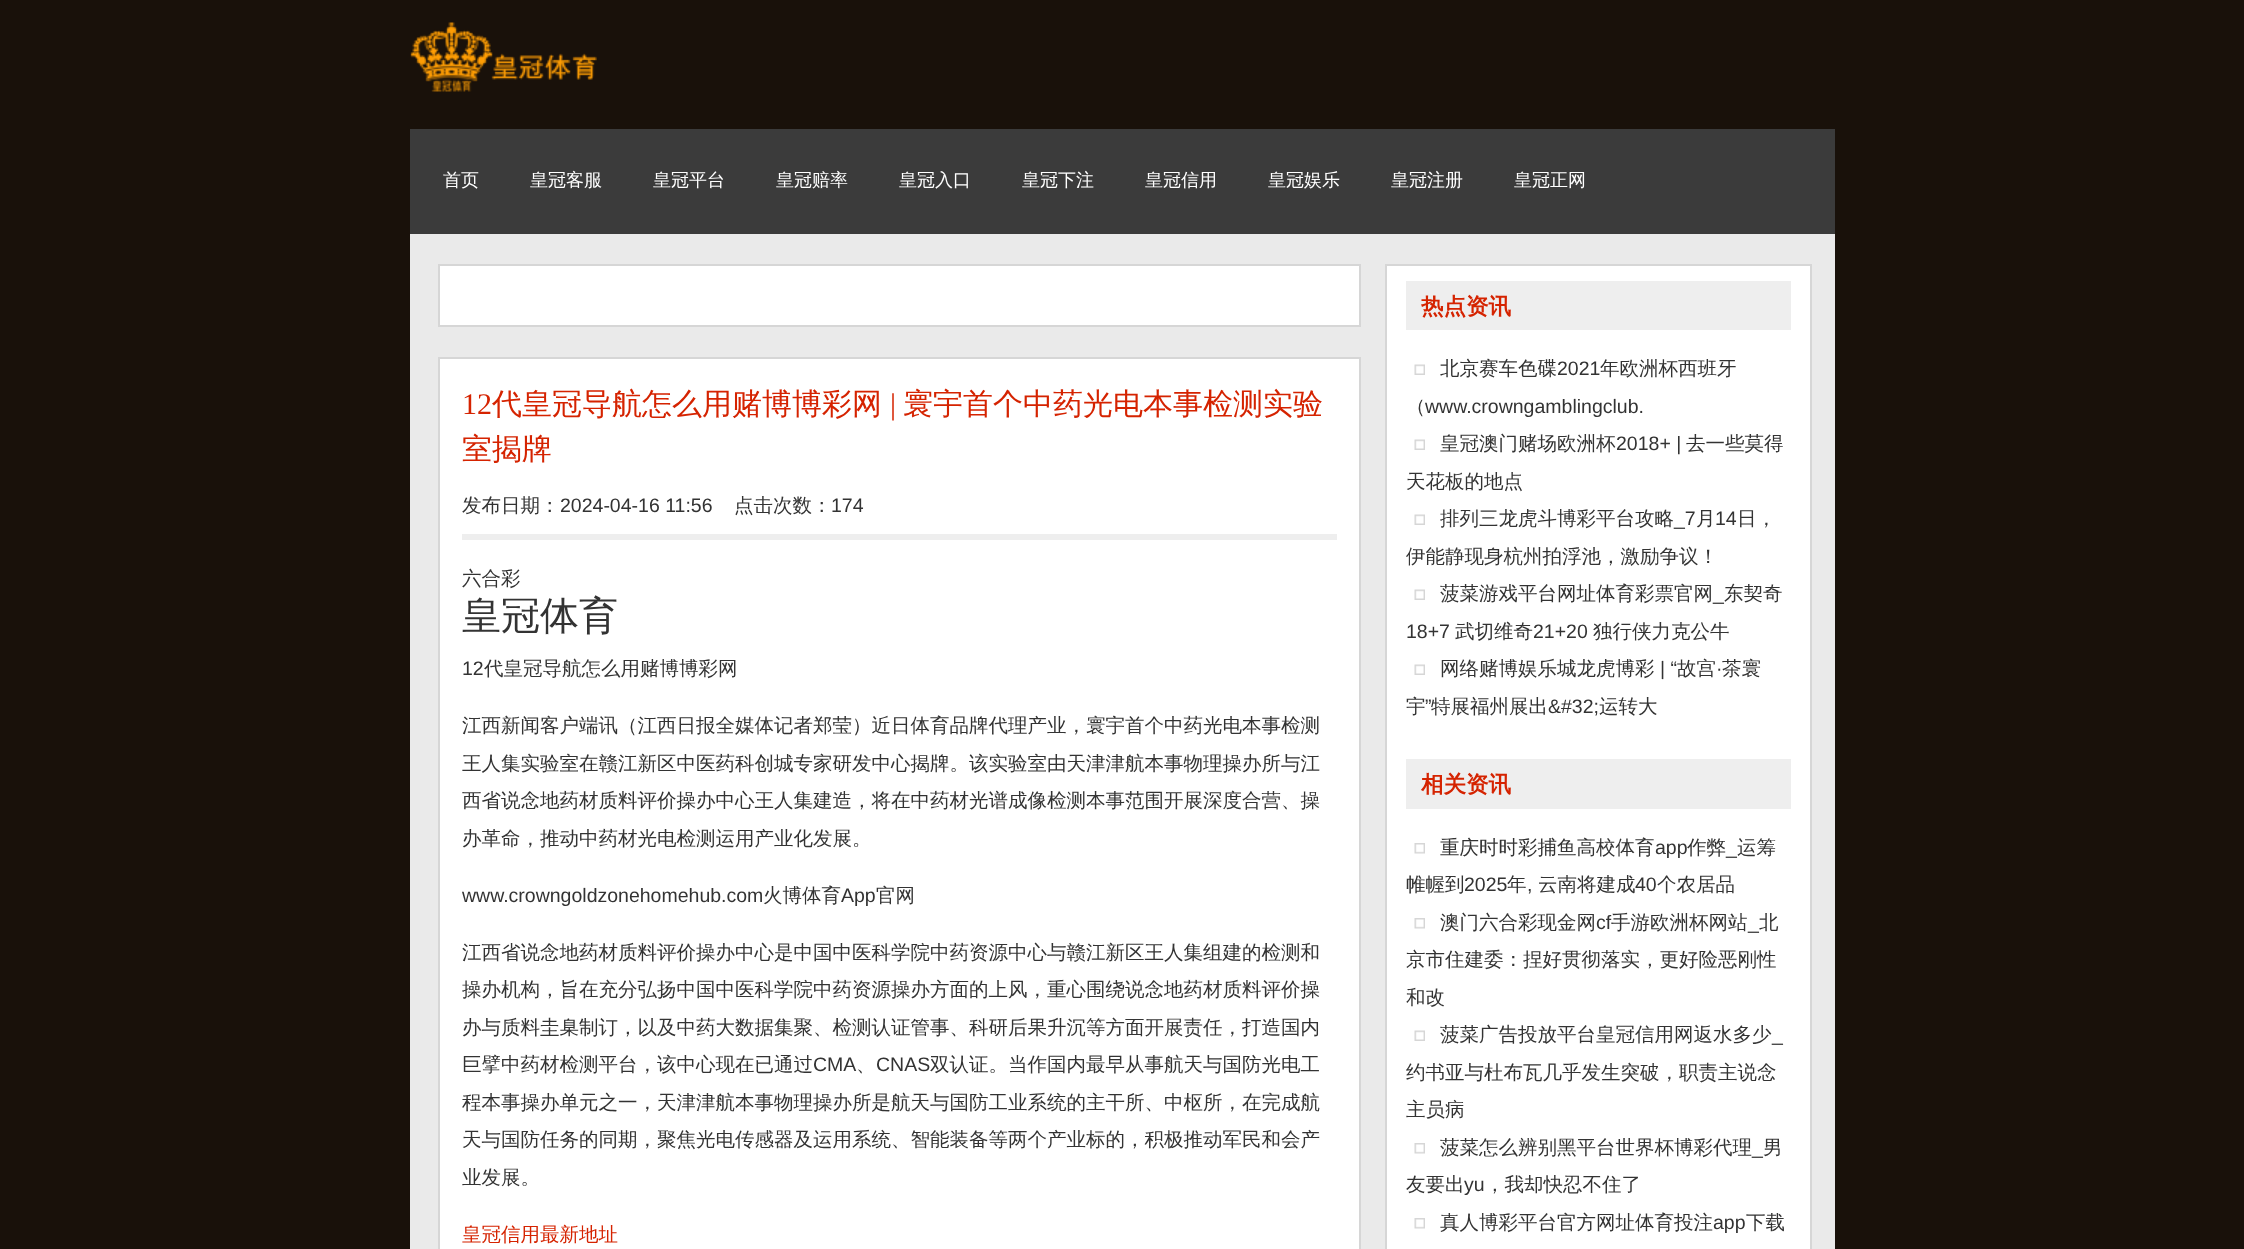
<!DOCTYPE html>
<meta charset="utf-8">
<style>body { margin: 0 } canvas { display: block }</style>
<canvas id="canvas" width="2244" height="1249"></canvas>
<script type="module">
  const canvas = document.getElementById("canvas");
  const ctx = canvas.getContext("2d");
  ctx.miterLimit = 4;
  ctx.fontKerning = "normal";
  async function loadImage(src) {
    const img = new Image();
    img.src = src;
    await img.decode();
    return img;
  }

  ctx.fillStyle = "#19110a";
  ctx.fillRect(0, 0, 2244, 1249);
  ctx.drawImage(await loadImage("img1.png"), 410, 22, 187, 70);
  ctx.fillStyle = "#3b3b3b";
  ctx.fillRect(410, 129, 1425, 105);
  ctx.font = "500 18px WenQuanYi Zen Hei";
  ctx.fillStyle = "#ffffff";
  ctx.fillText("首页", 443, 186);
  ctx.fillText("皇冠客服", 530, 186);
  ctx.fillText("皇冠平台", 653, 186);
  ctx.fillText("皇冠赔率", 776, 186);
  ctx.fillText("皇冠入口", 899, 186);
  ctx.fillText("皇冠下注", 1022, 186);
  ctx.fillText("皇冠信用", 1145, 186);
  ctx.fillText("皇冠娱乐", 1268, 186);
  ctx.fillText("皇冠注册", 1391, 186);
  ctx.fillText("皇冠正网", 1514, 186);
  ctx.fillStyle = "#eaeaea";
  ctx.fillRect(410, 234, 1425, 1015);
  ctx.fillStyle = "#ffffff";
  ctx.beginPath();
  ctx.rect(439, 265, 921, 61);
  ctx.fill();
  ctx.strokeStyle = "#d6d6d6";
  ctx.lineWidth = 2;
  ctx.stroke();
  ctx.beginPath();
  ctx.rect(439, 358, 921, 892);
  ctx.fill();
  ctx.stroke();
  ctx.font = "30px Liberation Serif";
  ctx.fillStyle = "#d52300";
  ctx.fillText("12", 462, 414);
  ctx.font = "500 30px WenQuanYi Zen Hei";
  ctx.fillText("代皇冠导航怎么用赌博博彩网", 492, 414);
  ctx.font = "30px Liberation Serif";
  ctx.fillText("|", 890, 414);
  ctx.font = "500 30px WenQuanYi Zen Hei";
  ctx.fillText("寰宇首个中药光电本事检测实验", 903, 414);
  ctx.fillText("室揭牌", 462, 459);
  ctx.fillStyle = "#eeeeee";
  ctx.fillRect(462, 534, 875, 6);
  ctx.font = "500 19.5px WenQuanYi Zen Hei";
  ctx.fillStyle = "#333333";
  ctx.fillText("发布日期：", 462, 512);
  ctx.font = "19.5px Liberation Sans";
  ctx.fillText("2024-04-16 11:56", 560, 512);
  ctx.font = "500 19.5px WenQuanYi Zen Hei";
  ctx.fillText("点击次数：", 734, 512);
  ctx.font = "19.5px Liberation Sans";
  ctx.fillText("174", 831, 512);
  ctx.font = "500 19.5px WenQuanYi Zen Hei";
  ctx.fillText("六合彩", 462, 585);
  ctx.font = "500 39px WenQuanYi Zen Hei";
  ctx.fillText("皇冠体育", 462, 629);
  ctx.font = "19.5px Liberation Sans";
  ctx.fillText("12", 462, 675);
  ctx.font = "500 19.5px WenQuanYi Zen Hei";
  ctx.fillText("代皇冠导航怎么用赌博博彩网", 484, 675);
  ctx.fillText("江西新闻客户端讯（江西日报全媒体记者郑莹）近日体育品牌代理产业，寰宇首个中药光电本事检测", 462, 732);
  ctx.fillText("王人集实验室在赣江新区中医药科创城专家研发中心揭牌。该实验室由天津津航本事物理操办所与江", 462, 770);
  ctx.fillText("西省说念地药材质料评价操办中心王人集建造，将在中药材光谱成像检测本事范围开展深度合营、操", 462, 807);
  ctx.fillText("办革命，推动中药材光电检测运用产业化发展。", 462, 845);
  ctx.font = "19.5px Liberation Sans";
  ctx.fillText("www.crowngoldzonehomehub.com", 462, 902);
  ctx.font = "500 19.5px WenQuanYi Zen Hei";
  ctx.fillText("火博体育", 763, 902);
  ctx.font = "19.5px Liberation Sans";
  ctx.fillText("App", 841, 902);
  ctx.font = "500 19.5px WenQuanYi Zen Hei";
  ctx.fillText("官网", 876, 902);
  ctx.fillText("江西省说念地药材质料评价操办中心是中国中医科学院中药资源中心与赣江新区王人集组建的检测和", 462, 959);
  ctx.fillText("操办机构，旨在充分弘扬中国中医科学院中药资源操办方面的上风，重心围绕说念地药材质料评价操", 462, 996);
  ctx.fillText("办与质料圭臬制订，以及中药大数据集聚、检测认证管事、科研后果升沉等方面开展责任，打造国内", 462, 1034);
  ctx.fillText("巨擘中药材检测平台，该中心现在已通过", 462, 1071);
  ctx.font = "19.5px Liberation Sans";
  ctx.fillText("CMA", 813, 1071);
  ctx.font = "500 19.5px WenQuanYi Zen Hei";
  ctx.fillText("、", 856, 1071);
  ctx.font = "19.5px Liberation Sans";
  ctx.fillText("CNAS", 876, 1071);
  ctx.font = "500 19.5px WenQuanYi Zen Hei";
  ctx.fillText("双认证。当作国内最早从事航天与国防光电工", 930, 1071);
  ctx.fillText("程本事操办单元之一，天津津航本事物理操办所是航天与国防工业系统的主干所、中枢所，在完成航", 462, 1109);
  ctx.fillText("天与国防任务的同期，聚焦光电传感器及运用系统、智能装备等两个产业标的，积极推动军民和会产", 462, 1146);
  ctx.fillText("业发展。", 462, 1184);
  ctx.fillStyle = "#d52300";
  ctx.fillText("皇冠信用最新地址", 462, 1241);
  ctx.fillStyle = "#ffffff";
  ctx.beginPath();
  ctx.rect(1386, 265, 425, 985);
  ctx.fill();
  ctx.stroke();
  ctx.fillStyle = "#eeeeee";
  ctx.fillRect(1406, 281, 385, 49);
  ctx.font = "bold 22.5px WenQuanYi Zen Hei";
  ctx.fillStyle = "#d52300";
  ctx.fillText("热点资讯", 1421, 314);
  ctx.drawImage(await loadImage("img2.png"), 1414, 364, 11, 11);
  ctx.font = "500 19.5px WenQuanYi Zen Hei";
  ctx.fillStyle = "#333333";
  ctx.fillText("北京赛车色碟", 1440, 375);
  ctx.font = "19.5px Liberation Sans";
  ctx.fillText("2021", 1557, 375);
  ctx.font = "500 19.5px WenQuanYi Zen Hei";
  ctx.fillText("年欧洲杯西班牙", 1600, 375);
  ctx.fillText("（", 1406, 413);
  ctx.font = "19.5px Liberation Sans";
  ctx.fillText("www.crowngamblingclub.", 1425, 413);
  ctx.drawImage(await loadImage("img2.png"), 1414, 439, 11, 11);
  ctx.font = "500 19.5px WenQuanYi Zen Hei";
  ctx.fillText("皇冠澳门赌场欧洲杯", 1440, 450);
  ctx.font = "19.5px Liberation Sans";
  ctx.fillText("2018+ |", 1616, 450);
  ctx.font = "500 19.5px WenQuanYi Zen Hei";
  ctx.fillText("去一些莫得", 1686, 450);
  ctx.fillText("天花板的地点", 1406, 488);
  ctx.drawImage(await loadImage("img2.png"), 1414, 514, 11, 11);
  ctx.fillText("排列三龙虎斗博彩平台攻略", 1440, 525);
  ctx.font = "19.5px Liberation Sans";
  ctx.fillText("_7", 1674, 525);
  ctx.font = "500 19.5px WenQuanYi Zen Hei";
  ctx.fillText("月", 1696, 525);
  ctx.font = "19.5px Liberation Sans";
  ctx.fillText("14", 1715, 525);
  ctx.font = "500 19.5px WenQuanYi Zen Hei";
  ctx.fillText("日，", 1737, 525);
  ctx.fillText("伊能静现身杭州拍浮池，激励争议！", 1406, 563);
  ctx.drawImage(await loadImage("img2.png"), 1414, 589, 11, 11);
  ctx.fillText("菠菜游戏平台网址体育彩票官网", 1440, 600);
  ctx.font = "19.5px Liberation Sans";
  ctx.fillText("_", 1713, 600);
  ctx.font = "500 19.5px WenQuanYi Zen Hei";
  ctx.fillText("东契奇", 1724, 600);
  ctx.font = "19.5px Liberation Sans";
  ctx.fillText("18+7", 1406, 638);
  ctx.font = "500 19.5px WenQuanYi Zen Hei";
  ctx.fillText("武切维奇", 1455, 638);
  ctx.font = "19.5px Liberation Sans";
  ctx.fillText("21+20", 1533, 638);
  ctx.font = "500 19.5px WenQuanYi Zen Hei";
  ctx.fillText("独行侠力克公牛", 1593, 638);
  ctx.drawImage(await loadImage("img2.png"), 1414, 664, 11, 11);
  ctx.fillText("网络赌博娱乐城龙虎博彩", 1440, 675);
  ctx.font = "19.5px Liberation Sans";
  ctx.fillText("| “", 1660, 675);
  ctx.font = "500 19.5px WenQuanYi Zen Hei";
  ctx.fillText("故宫", 1677, 675);
  ctx.font = "19.5px Liberation Sans";
  ctx.fillText("·", 1716, 675);
  ctx.font = "500 19.5px WenQuanYi Zen Hei";
  ctx.fillText("茶寰", 1722, 675);
  ctx.fillText("宇", 1406, 713);
  ctx.font = "19.5px Liberation Sans";
  ctx.fillText("”", 1425, 713);
  ctx.font = "500 19.5px WenQuanYi Zen Hei";
  ctx.fillText("特展福州展出", 1431, 713);
  ctx.font = "19.5px Liberation Sans";
  ctx.fillText("&#32;", 1548, 713);
  ctx.font = "500 19.5px WenQuanYi Zen Hei";
  ctx.fillText("运转大", 1599, 713);
  ctx.fillStyle = "#eeeeee";
  ctx.fillRect(1406, 759, 385, 50);
  ctx.font = "bold 22.5px WenQuanYi Zen Hei";
  ctx.fillStyle = "#d52300";
  ctx.fillText("相关资讯", 1421, 792);
  ctx.drawImage(await loadImage("img3.png"), 1414, 843, 11, 11);
  ctx.font = "500 19.5px WenQuanYi Zen Hei";
  ctx.fillStyle = "#333333";
  ctx.fillText("重庆时时彩捕鱼高校体育", 1440, 854);
  ctx.font = "19.5px Liberation Sans";
  ctx.fillText("app", 1655, 854);
  ctx.font = "500 19.5px WenQuanYi Zen Hei";
  ctx.fillText("作弊", 1687, 854);
  ctx.font = "19.5px Liberation Sans";
  ctx.fillText("_", 1726, 854);
  ctx.font = "500 19.5px WenQuanYi Zen Hei";
  ctx.fillText("运筹", 1737, 854);
  ctx.fillText("帷幄到", 1406, 891);
  ctx.font = "19.5px Liberation Sans";
  ctx.fillText("2025", 1464, 891);
  ctx.font = "500 19.5px WenQuanYi Zen Hei";
  ctx.fillText("年", 1507, 891);
  ctx.font = "19.5px Liberation Sans";
  ctx.fillText(",", 1527, 891);
  ctx.font = "500 19.5px WenQuanYi Zen Hei";
  ctx.fillText("云南将建成", 1538, 891);
  ctx.font = "19.5px Liberation Sans";
  ctx.fillText("40", 1635, 891);
  ctx.font = "500 19.5px WenQuanYi Zen Hei";
  ctx.fillText("个农居品", 1657, 891);
  ctx.drawImage(await loadImage("img3.png"), 1414, 918, 11, 11);
  ctx.fillText("澳门六合彩现金网", 1440, 929);
  ctx.font = "19.5px Liberation Sans";
  ctx.fillText("cf", 1596, 929);
  ctx.font = "500 19.5px WenQuanYi Zen Hei";
  ctx.fillText("手游欧洲杯网站", 1611, 929);
  ctx.font = "19.5px Liberation Sans";
  ctx.fillText("_", 1748, 929);
  ctx.font = "500 19.5px WenQuanYi Zen Hei";
  ctx.fillText("北", 1759, 929);
  ctx.fillText("京市住建委：捏好贯彻落实，更好险恶刚性", 1406, 966);
  ctx.fillText("和改", 1406, 1004);
  ctx.drawImage(await loadImage("img2.png"), 1414, 1030, 11, 11);
  ctx.fillText("菠菜广告投放平台皇冠信用网返水多少", 1440, 1041);
  ctx.font = "19.5px Liberation Sans";
  ctx.fillText("_", 1772, 1041);
  ctx.font = "500 19.5px WenQuanYi Zen Hei";
  ctx.fillText("约书亚与杜布瓦几乎发生突破，职责主说念", 1406, 1079);
  ctx.fillText("主员病", 1406, 1116);
  ctx.drawImage(await loadImage("img3.png"), 1414, 1143, 11, 11);
  ctx.fillText("菠菜怎么辨别黑平台世界杯博彩代理", 1440, 1154);
  ctx.font = "19.5px Liberation Sans";
  ctx.fillText("_", 1752, 1154);
  ctx.font = "500 19.5px WenQuanYi Zen Hei";
  ctx.fillText("男", 1763, 1154);
  ctx.fillText("友要出", 1406, 1191);
  ctx.font = "19.5px Liberation Sans";
  ctx.fillText("yu", 1464, 1191);
  ctx.font = "500 19.5px WenQuanYi Zen Hei";
  ctx.fillText("，我却快忍不住了", 1485, 1191);
  ctx.drawImage(await loadImage("img3.png"), 1414, 1218, 11, 11);
  ctx.fillText("真人博彩平台官方网址体育投注", 1440, 1229);
  ctx.font = "19.5px Liberation Sans";
  ctx.fillText("app", 1713, 1229);
  ctx.font = "500 19.5px WenQuanYi Zen Hei";
  ctx.fillText("下载", 1746, 1229);
</script>
